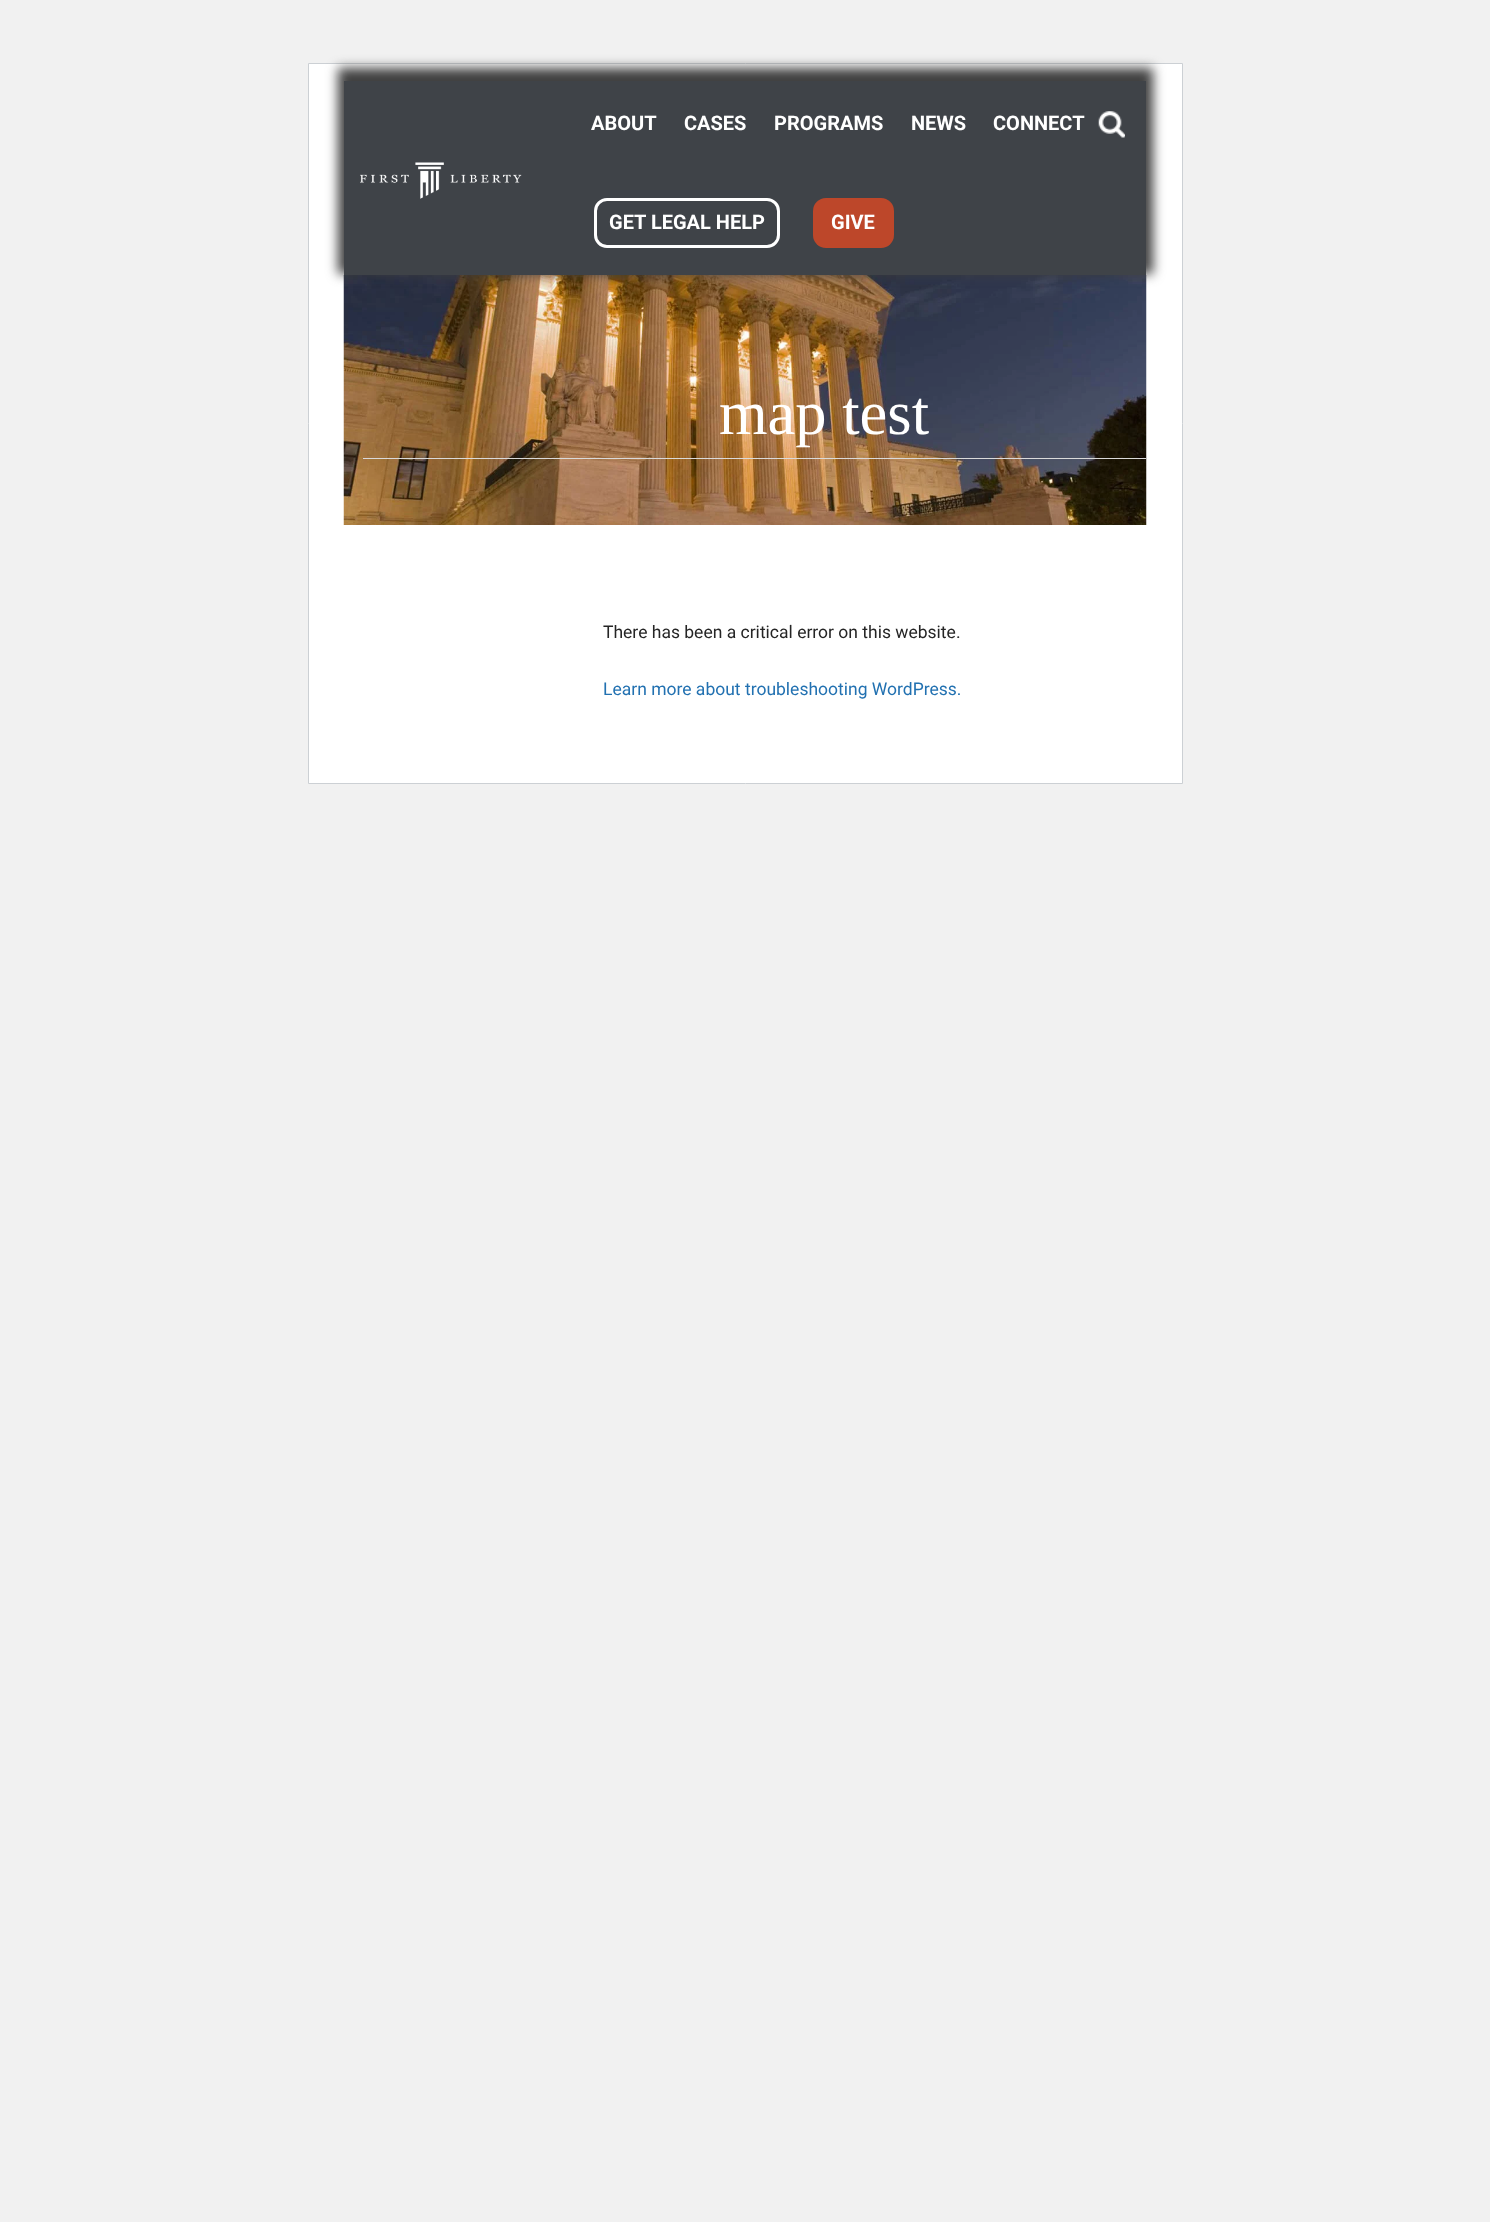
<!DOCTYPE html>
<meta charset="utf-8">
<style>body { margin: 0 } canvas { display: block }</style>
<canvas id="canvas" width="1490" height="2222"></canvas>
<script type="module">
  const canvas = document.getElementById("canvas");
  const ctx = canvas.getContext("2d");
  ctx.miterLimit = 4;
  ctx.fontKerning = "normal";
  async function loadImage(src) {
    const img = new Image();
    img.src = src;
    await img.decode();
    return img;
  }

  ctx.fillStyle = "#f1f1f1";
  ctx.fillRect(0, 0, 1490, 2222);
  ctx.fillStyle = "#ffffff";
  ctx.beginPath();
  ctx.rect(308.5, 63.5, 874, 720);
  ctx.fill();
  ctx.strokeStyle = "#ccd0d4";
  ctx.stroke();
  ctx.drawImage(await loadImage("img3.png"), 343, 275, 804, 250);
  ctx.fillStyle = "#404040";
  ctx.filter = "blur(6px)";
  ctx.beginPath();
  ctx.rect(338, 68, 815, 206);
  ctx.fill();
  ctx.filter = "none";
  ctx.fillStyle = "#3f4348";
  ctx.fillRect(344, 81, 802, 194);
  ctx.drawImage(await loadImage("img1.png"), 360, 162, 162, 37);
  ctx.font = "bold 20px Roboto";
  ctx.fillStyle = "#ffffff";
  ctx.fillText("ABOUT", 591, 130);
  ctx.fillText("CASES", 684, 130);
  ctx.fillText("PROGRAMS", 774, 130);
  ctx.fillText("NEWS", 911, 130);
  ctx.fillText("CONNECT", 993, 130);
  ctx.drawImage(await loadImage("img2.png"), 1098, 111, 27, 27);
  ctx.beginPath();
  ctx.roundRect(595.5, 199.5, 183, 47, 11.5);
  ctx.strokeStyle = "#ffffff";
  ctx.lineWidth = 3;
  ctx.stroke();
  ctx.fillText("GET LEGAL HELP", 609, 229);
  ctx.fillStyle = "#bd472a";
  ctx.beginPath();
  ctx.roundRect(813, 198, 81, 50, 13);
  ctx.fill();
  ctx.fillStyle = "#ffffff";
  ctx.fillText("GIVE", 831, 229);
  ctx.fillStyle = "#dadada";
  ctx.fillRect(363, 458, 783, 1);
  ctx.font = "62.5px Liberation Serif";
  ctx.fillStyle = "#ffffff";
  ctx.fillText("map test", 719, 434);
  ctx.font = "17.5px Roboto";
  ctx.fillStyle = "#252525";
  ctx.fillText("There has been a critical error on this website.", 603, 638);
  ctx.fillStyle = "#2271b1";
  ctx.fillText("Learn more about troubleshooting WordPress.", 603, 695);
</script>
